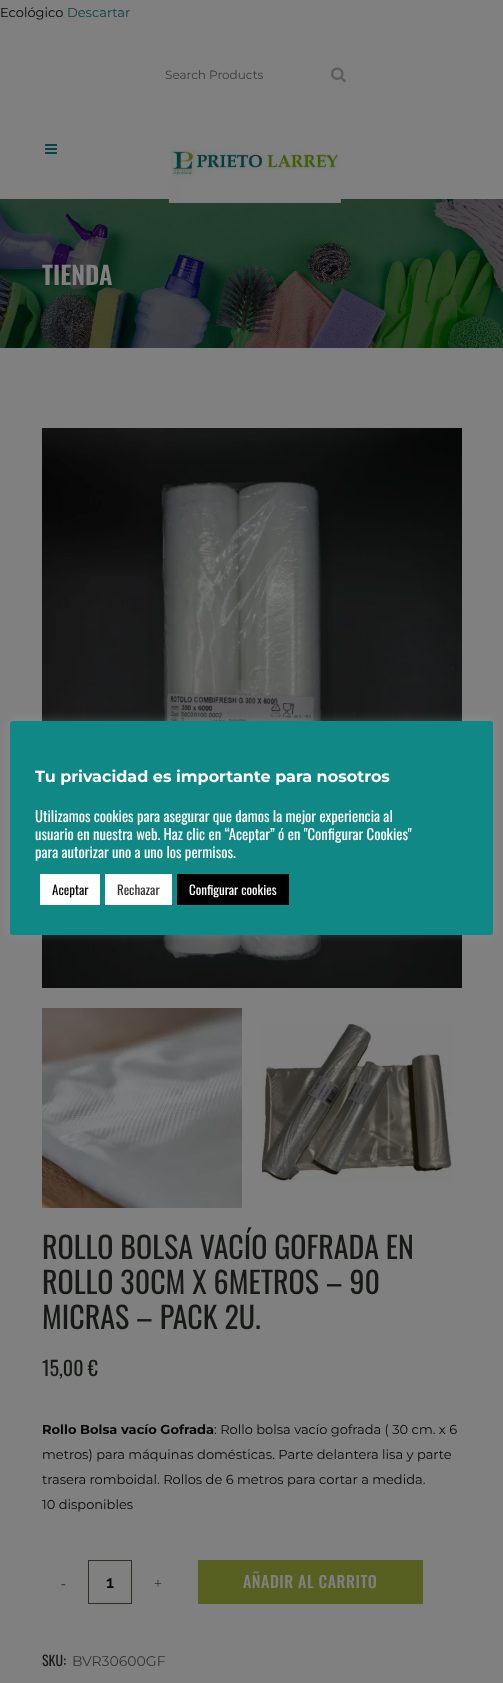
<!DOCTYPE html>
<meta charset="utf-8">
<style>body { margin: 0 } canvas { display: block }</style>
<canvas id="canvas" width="503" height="1683"></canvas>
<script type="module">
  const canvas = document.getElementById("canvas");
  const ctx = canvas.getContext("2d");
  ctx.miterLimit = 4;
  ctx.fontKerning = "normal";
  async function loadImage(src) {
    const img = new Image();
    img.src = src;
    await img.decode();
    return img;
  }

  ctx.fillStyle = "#808080";
  ctx.fillRect(0, 0, 503, 1683);
  ctx.font = "13px Montserrat";
  ctx.fillStyle = "#080707";
  ctx.fillText("Ecológico", 0, 17);
  ctx.fillStyle = "#084443";
  ctx.fillText("Descartar", 67, 17);
  ctx.font = "12px Montserrat";
  ctx.fillStyle = "#3b3b3b";
  ctx.fillText("Search Products", 165, 79);
  ctx.drawImage(await loadImage("img1.png"), 331, 67, 15, 16);
  ctx.drawImage(await loadImage("img2.png"), 45, 144, 12, 10);
  ctx.drawImage(await loadImage("img4.png"), 0, 199, 503, 149);
  ctx.drawImage(await loadImage("img3.png"), 168, 148, 173, 55);
  ctx.font = "600 25px Oswald";
  ctx.fillStyle = "#808080";
  ctx.fillText("TIENDA", 42, 285);
  ctx.drawImage(await loadImage("img5.png"), 42, 428, 420, 560);
  ctx.drawImage(await loadImage("img6.png"), 42, 1008, 200, 200);
  ctx.drawImage(await loadImage("img7.png"), 262, 1024, 190, 158);
  ctx.font = "30px Oswald";
  ctx.fillStyle = "#161915";
  ctx.fillText("ROLLO BOLSA VACÍO GOFRADA EN", 42, 1259);
  ctx.fillText("ROLLO 30CM X 6METROS – 90", 42, 1294);
  ctx.fillText("MICRAS – PACK 2U.", 42, 1329);
  ctx.font = "20px Oswald";
  ctx.fillText("15,00 €", 42, 1376);
  ctx.font = "bold 13px Montserrat";
  ctx.fillStyle = "#080707";
  ctx.fillText("Rollo Bolsa vacío Gofrada", 42, 1434);
  ctx.font = "13px Montserrat";
  ctx.fillText(": Rollo bolsa vacío gofrada ( 30 cm. x 6", 214, 1434);
  ctx.fillText("metros) para máquinas domésticas. Parte delantera lisa y parte", 42, 1459);
  ctx.fillText("trasera romboidal. Rollos de 6 metros para cortar a medida.", 42, 1484);
  ctx.fillText("10 disponibles", 42, 1509);
  ctx.font = "14px Liberation Serif";
  ctx.fillStyle = "#283223";
  ctx.fillText("-", 61, 1588);
  ctx.strokeStyle = "#283223";
  ctx.strokeRect(88.5, 1560.5, 43, 43);
  ctx.font = "600 17px Raleway";
  ctx.fillStyle = "#080707";
  ctx.fillText("1", 106, 1588);
  ctx.font = "14px Liberation Serif";
  ctx.fillStyle = "#283223";
  ctx.fillText("+", 154, 1588);
  ctx.fillStyle = "#576020";
  ctx.fillRect(198, 1560, 225, 44);
  ctx.letterSpacing = "0.5px";
  ctx.font = "500 16px Oswald";
  ctx.fillStyle = "#808080";
  ctx.fillText("AÑADIR AL CARRITO", 243, 1588);
  ctx.letterSpacing = "0px";
  ctx.font = "14px Oswald";
  ctx.fillStyle = "#161915";
  ctx.fillText("SKU:", 42, 1666);
  ctx.font = "14px Montserrat";
  ctx.fillStyle = "#343333";
  ctx.fillText("BVR30600GF", 72, 1666);
  ctx.fillStyle = "rgba(172, 171, 171, 0.3)";
  ctx.filter = "blur(5px)";
  ctx.beginPath();
  ctx.roundRect(10, 720, 483, 214, 3);
  ctx.fill();
  ctx.filter = "none";
  ctx.fillStyle = "#108886";
  ctx.beginPath();
  ctx.roundRect(10, 721, 483, 214, 3);
  ctx.fill();
  ctx.font = "bold 16px Montserrat";
  ctx.fillStyle = "#ffffff";
  ctx.fillText("Tu privacidad es importante para nosotros", 35, 782);
  ctx.font = "14.7px Oswald";
  ctx.fillText("Utilizamos cookies para asegurar que damos la mejor experiencia al", 35, 822);
  ctx.fillText("usuario en nuestra web. Haz clic en “Aceptar” ó en \"Configurar Cookies\"", 35, 840);
  ctx.fillText("para autorizar uno a uno los permisos.", 35, 858);
  ctx.fillRect(40, 874, 60, 31);
  ctx.font = "13px Oswald";
  ctx.fillStyle = "#000000";
  ctx.fillText("Aceptar", 52, 895);
  ctx.fillStyle = "#ffffff";
  ctx.fillRect(105, 874, 67, 31);
  ctx.fillStyle = "#343333";
  ctx.fillText("Rechazar", 117, 895);
  ctx.fillStyle = "#000000";
  ctx.fillRect(177, 874, 112, 31);
  ctx.fillStyle = "#ffffff";
  ctx.fillText("Configurar cookies", 189, 895);
</script>
